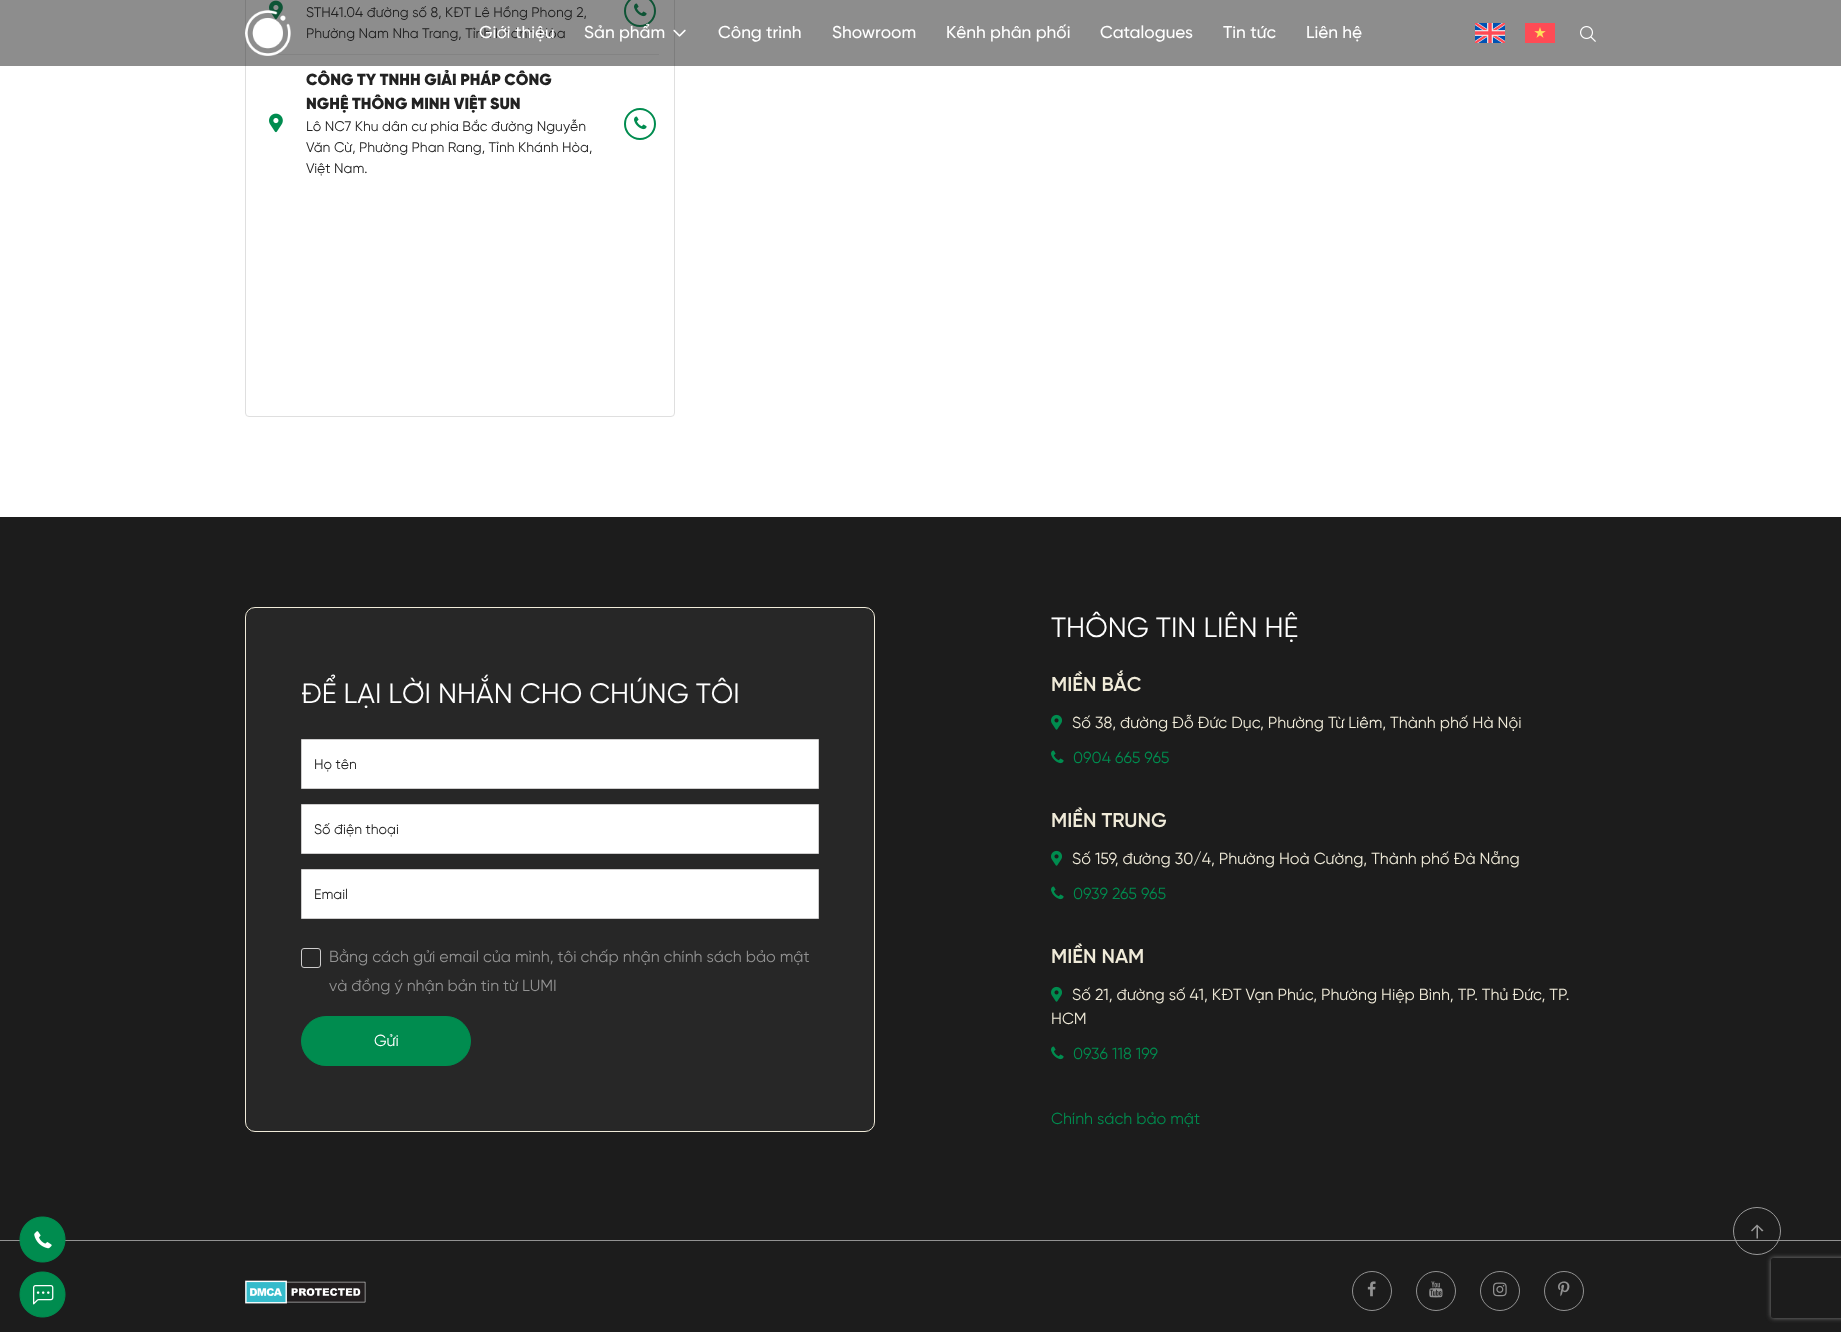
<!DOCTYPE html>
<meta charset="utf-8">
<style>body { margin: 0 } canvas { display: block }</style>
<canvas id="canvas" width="1841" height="1332"></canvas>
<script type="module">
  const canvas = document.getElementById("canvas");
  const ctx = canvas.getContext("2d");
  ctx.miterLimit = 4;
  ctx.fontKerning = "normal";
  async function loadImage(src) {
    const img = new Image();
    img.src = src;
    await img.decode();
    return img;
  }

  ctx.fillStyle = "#ffffff";
  ctx.fillRect(0, 0, 1841, 1332);
  ctx.beginPath();
  ctx.roundRect(245.5, -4.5, 429, 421, 3.5);
  ctx.strokeStyle = "#dfdfdf";
  ctx.stroke();
  ctx.drawImage(await loadImage("img1.png"), 269, 0, 14, 20);
  ctx.font = "14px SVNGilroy";
  ctx.fillStyle = "#222222";
  ctx.fillText("STH41.04 đường số 8, KĐT Lê Hồng Phong 2,", 306, 17);
  ctx.fillText("Phường Nam Nha Trang, Tỉnh Khánh Hòa", 306, 38);
  ctx.beginPath();
  ctx.arc(640, 11, 15, 0, Math.PI * 2);
  ctx.strokeStyle = "#008c4f";
  ctx.lineWidth = 2;
  ctx.stroke();
  ctx.drawImage(await loadImage("img2.png"), 634, 3, 13, 14);
  ctx.fillStyle = "#ebebeb";
  ctx.fillRect(261, 54, 398, 1);
  ctx.drawImage(await loadImage("img1.png"), 269, 113, 14, 20);
  ctx.font = "900 16px SVNGilroy";
  ctx.fillStyle = "#222222";
  ctx.fillText("CÔNG TY TNHH GIẢI PHÁP CÔNG", 306, 85);
  ctx.fillText("NGHỆ THÔNG MINH VIỆT SUN", 306, 109);
  ctx.font = "14px SVNGilroy";
  ctx.fillText("Lô NC7 Khu dân cư phía Bắc đường Nguyễn", 306, 131);
  ctx.fillText("Văn Cừ, Phường Phan Rang, Tỉnh Khánh Hòa,", 306, 152);
  ctx.fillText("Việt Nam.", 306, 173);
  ctx.beginPath();
  ctx.arc(640, 124, 15, 0, Math.PI * 2);
  ctx.stroke();
  ctx.drawImage(await loadImage("img2.png"), 634, 116, 13, 14);
  ctx.fillStyle = "rgba(28, 28, 28, 0.5)";
  ctx.fillRect(0, 0, 1841, 66);
  ctx.drawImage(await loadImage("img3.png"), 245, 10, 46, 46);
  ctx.font = "500 17.25px SVNGilroy";
  ctx.fillStyle = "#ffffff";
  ctx.fillText("Giới thiệu", 479, 38);
  ctx.fillText("Sản phẩm", 584, 38);
  ctx.drawImage(await loadImage("img4.png"), 673, 29, 13, 8);
  ctx.fillText("Công trình", 718, 38);
  ctx.fillText("Showroom", 832, 38);
  ctx.fillText("Kênh phân phối", 946, 38);
  ctx.fillText("Catalogues", 1100, 38);
  ctx.fillText("Tin tức", 1223, 38);
  ctx.fillText("Liên hệ", 1306, 38);
  ctx.drawImage(await loadImage("img5.png"), 1475, 23, 30, 20);
  ctx.drawImage(await loadImage("img6.png"), 1525, 23, 30, 20);
  ctx.drawImage(await loadImage("img7.png"), 1580, 26, 16, 16);
  ctx.fillStyle = "#1c1c1c";
  ctx.fillRect(0, 517, 1841, 815);
  ctx.fillStyle = "#929292";
  ctx.fillRect(0, 1240, 1841, 1);
  ctx.fillStyle = "#272727";
  ctx.beginPath();
  ctx.roundRect(245.5, 607.5, 629, 524, 9.5);
  ctx.fill();
  ctx.strokeStyle = "#f0ebd9";
  ctx.lineWidth = 1;
  ctx.stroke();
  ctx.font = "28px SVNGilroy";
  ctx.fillStyle = "#ffffff";
  ctx.fillText("ĐỂ LẠI LỜI NHẮN CHO CHÚNG TÔI", 301, 703);
  ctx.beginPath();
  ctx.rect(301.5, 739.5, 517, 49);
  ctx.fill();
  ctx.strokeStyle = "#cecdcd";
  ctx.stroke();
  ctx.font = "14px SVNGilroy";
  ctx.fillStyle = "#222222";
  ctx.fillText("Họ tên", 314, 769);
  ctx.fillStyle = "#ffffff";
  ctx.beginPath();
  ctx.rect(301.5, 804.5, 517, 49);
  ctx.fill();
  ctx.stroke();
  ctx.fillStyle = "#222222";
  ctx.fillText("Số điện thoại", 314, 834);
  ctx.fillStyle = "#ffffff";
  ctx.beginPath();
  ctx.rect(301.5, 869.5, 517, 49);
  ctx.fill();
  ctx.stroke();
  ctx.fillStyle = "#222222";
  ctx.fillText("Email", 314, 899);
  ctx.beginPath();
  ctx.roundRect(301.5, 948.5, 19, 19, 2.5);
  ctx.stroke();
  ctx.font = "16px SVNGilroy";
  ctx.fillStyle = "#929292";
  ctx.fillText("Bằng cách gửi email của mình, tôi chấp nhận chính sách bảo mật", 329, 962);
  ctx.fillText("và đồng ý nhận bản tin từ LUMI", 329, 991);
  ctx.fillStyle = "#008c4f";
  ctx.beginPath();
  ctx.roundRect(301.5, 1016.5, 169, 49, 24.5);
  ctx.fill();
  ctx.strokeStyle = "#008c4f";
  ctx.stroke();
  ctx.fillStyle = "#ffffff";
  ctx.fillText("Gửi", 374, 1046);
  ctx.font = "28px SVNGilroy";
  ctx.fillText("THÔNG TIN LIÊN HỆ", 1051, 637);
  ctx.font = "600 20px SVNGilroy";
  ctx.fillStyle = "#f0ebd9";
  ctx.fillText("MIỀN BẮC", 1051, 691);
  ctx.drawImage(await loadImage("img8.png"), 1051, 714, 11, 16);
  ctx.font = "16px SVNGilroy";
  ctx.fillText("Số 38, đường Đỗ Đức Dục, Phường Từ Liêm, Thành phố Hà Nội", 1072, 728);
  ctx.drawImage(await loadImage("img9.png"), 1051, 750, 13, 14);
  ctx.fillStyle = "#008c4f";
  ctx.fillText("0904 665 965", 1073, 763);
  ctx.font = "600 20px SVNGilroy";
  ctx.fillStyle = "#f0ebd9";
  ctx.fillText("MIỀN TRUNG", 1051, 827);
  ctx.drawImage(await loadImage("img8.png"), 1051, 850, 11, 16);
  ctx.font = "16px SVNGilroy";
  ctx.fillText("Số 159, đường 30/4, Phường Hoà Cường, Thành phố Đà Nẵng", 1072, 864);
  ctx.drawImage(await loadImage("img9.png"), 1051, 886, 13, 14);
  ctx.fillStyle = "#008c4f";
  ctx.fillText("0939 265 965", 1073, 899);
  ctx.font = "600 20px SVNGilroy";
  ctx.fillStyle = "#f0ebd9";
  ctx.fillText("MIỀN NAM", 1051, 963);
  ctx.drawImage(await loadImage("img8.png"), 1051, 986, 11, 16);
  ctx.font = "16px SVNGilroy";
  ctx.fillText("Số 21, đường số 41, KĐT Vạn Phúc, Phường Hiệp Bình, TP. Thủ Đức, TP.", 1072, 1000);
  ctx.fillText("HCM", 1051, 1024);
  ctx.drawImage(await loadImage("img9.png"), 1051, 1046, 13, 14);
  ctx.fillStyle = "#008c4f";
  ctx.fillText("0936 118 199", 1073, 1059);
  ctx.fillText("Chính sách bảo mật", 1051, 1124);
  ctx.drawImage(await loadImage("img10.png"), 245, 1280, 121, 24);
  ctx.beginPath();
  ctx.arc(1372, 1291, 19.5, 0, Math.PI * 2);
  ctx.strokeStyle = "#929292";
  ctx.stroke();
  ctx.drawImage(await loadImage("img11.png"), 1367, 1281, 9, 16);
  ctx.beginPath();
  ctx.arc(1436, 1291, 19.5, 0, Math.PI * 2);
  ctx.stroke();
  ctx.drawImage(await loadImage("img12.png"), 1429, 1281, 14, 17);
  ctx.beginPath();
  ctx.arc(1500, 1291, 19.5, 0, Math.PI * 2);
  ctx.stroke();
  ctx.drawImage(await loadImage("img13.png"), 1493, 1282, 14, 15);
  ctx.beginPath();
  ctx.arc(1564, 1291, 19.5, 0, Math.PI * 2);
  ctx.stroke();
  ctx.drawImage(await loadImage("img14.png"), 1558, 1281, 12, 16);
  ctx.save();
  ctx.beginPath();
  ctx.moveTo(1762, 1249);
  ctx.lineTo(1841, 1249);
  ctx.lineTo(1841, 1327);
  ctx.lineTo(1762, 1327);
  ctx.closePath();
  ctx.moveTo(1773, 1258);
  ctx.lineTo(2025, 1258);
  ctx.bezierCurveTo(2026, 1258, 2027, 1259, 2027, 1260);
  ctx.lineTo(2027, 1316);
  ctx.bezierCurveTo(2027, 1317, 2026, 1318, 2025, 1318);
  ctx.lineTo(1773, 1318);
  ctx.bezierCurveTo(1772, 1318, 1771, 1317, 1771, 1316);
  ctx.lineTo(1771, 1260);
  ctx.bezierCurveTo(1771, 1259, 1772, 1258, 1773, 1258);
  ctx.closePath();
  ctx.clip("evenodd");
  ctx.fillStyle = "#808080";
  ctx.filter = "blur(2.5px)";
  ctx.beginPath();
  ctx.roundRect(1771, 1258, 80, 60, 2);
  ctx.fill();
  ctx.filter = "none";
  ctx.restore();
  ctx.beginPath();
  ctx.arc(1757, 1231, 23.5, 0, Math.PI * 2);
  ctx.strokeStyle = "#999999";
  ctx.stroke();
  ctx.fillStyle = "#999999";
  ctx.beginPath();
  ctx.moveTo(1751, 1230.5);
  ctx.lineTo(1752, 1231.5);
  ctx.lineTo(1756.5, 1227);
  ctx.lineTo(1756.5, 1238.5);
  ctx.lineTo(1758, 1238.5);
  ctx.lineTo(1758, 1227);
  ctx.lineTo(1762, 1231.5);
  ctx.lineTo(1763.5, 1230.5);
  ctx.lineTo(1757, 1224.5);
  ctx.closePath();
  ctx.fill();
  ctx.drawImage(await loadImage("img15.png"), 19, 1216, 47, 47);
  ctx.drawImage(await loadImage("img16.png"), 19, 1271, 47, 47);
</script>
